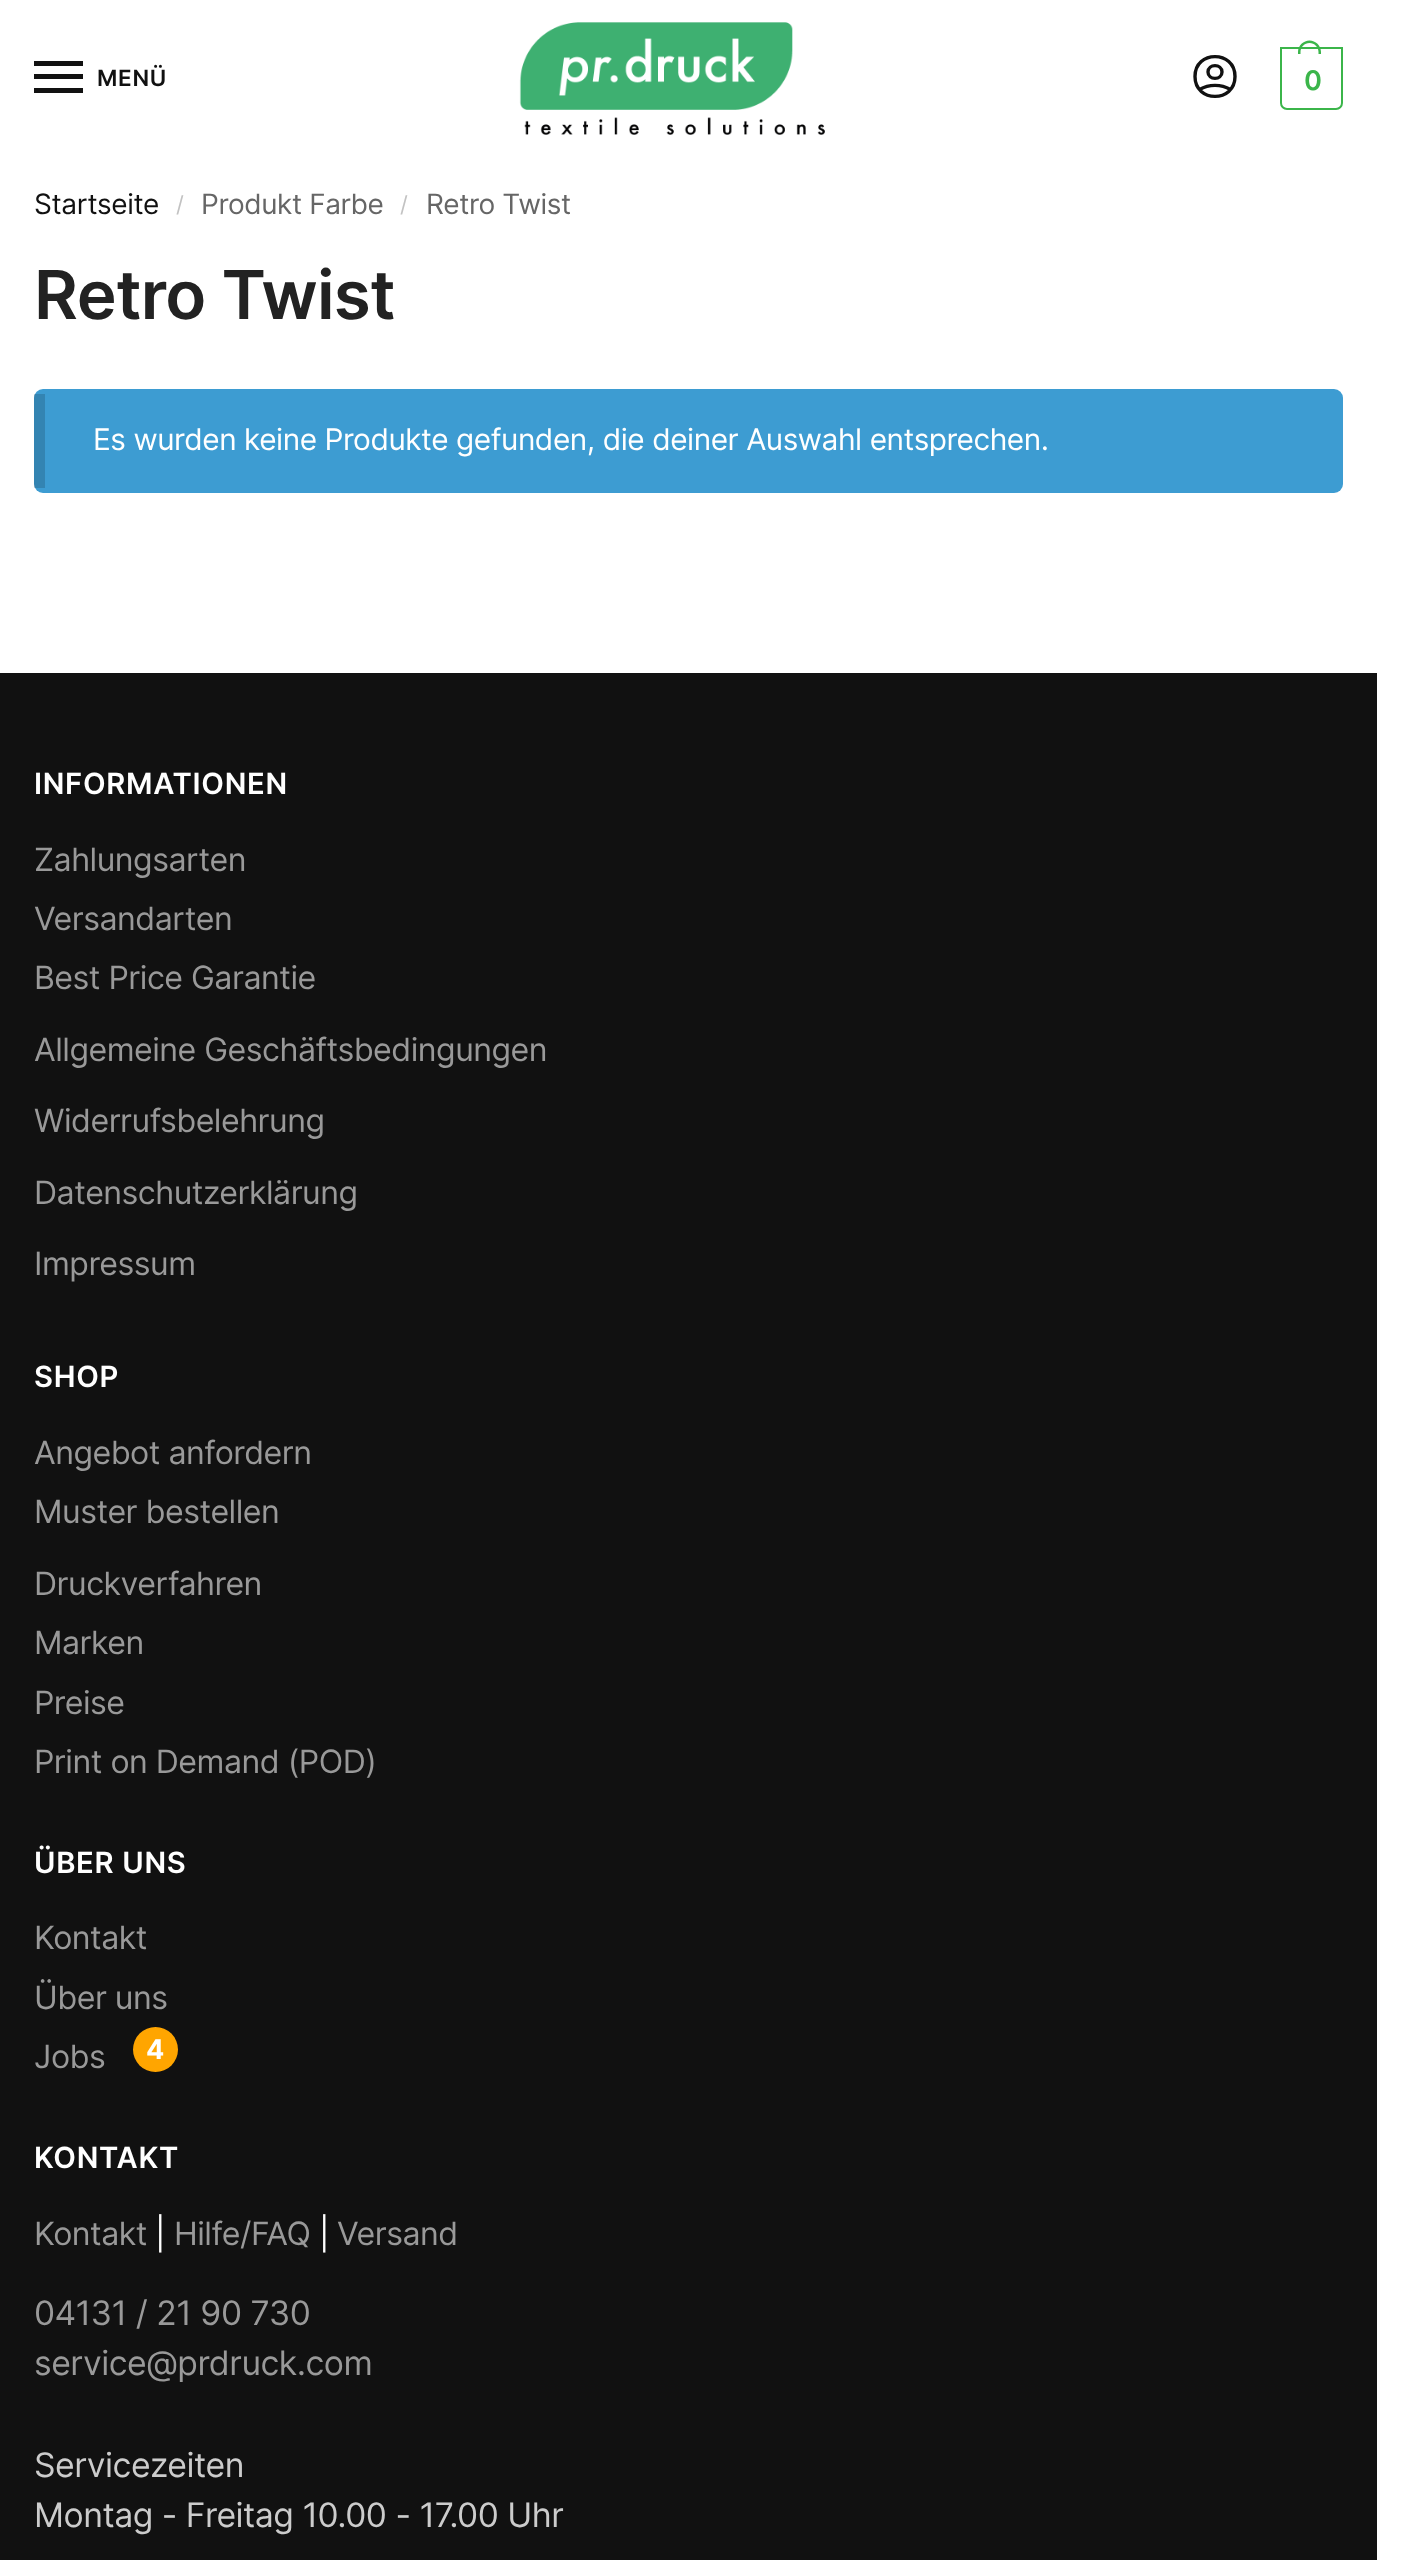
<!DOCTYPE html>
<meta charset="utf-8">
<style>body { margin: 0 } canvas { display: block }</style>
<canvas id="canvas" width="1410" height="2560"></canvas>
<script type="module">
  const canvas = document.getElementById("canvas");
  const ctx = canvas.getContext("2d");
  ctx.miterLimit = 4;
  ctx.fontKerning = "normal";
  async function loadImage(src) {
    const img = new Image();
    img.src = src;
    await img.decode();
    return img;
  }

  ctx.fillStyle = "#ffffff";
  ctx.fillRect(0, 0, 1410, 2560);
  ctx.fillStyle = "#111111";
  ctx.fillRect(34, 61, 49, 5);
  ctx.fillRect(34, 74, 49, 5);
  ctx.letterSpacing = "0.7px";
  ctx.font = "600 22.5px Inter";
  ctx.fillText("MENÜ", 97, 86);
  ctx.fillRect(34, 88, 49, 5);
  ctx.drawImage(await loadImage("img1.png"), 519, 22, 306, 113);
  ctx.beginPath();
  ctx.moveTo(1199.5, 89.5);
  ctx.bezierCurveTo(1209, 84, 1221, 84, 1230.5, 89.5);
  ctx.moveTo(1222, 72);
  ctx.bezierCurveTo(1222, 80.5, 1208, 80.5, 1208, 72);
  ctx.bezierCurveTo(1208, 63.5, 1222, 63.5, 1222, 72);
  ctx.closePath();
  ctx.moveTo(1235, 76.5);
  ctx.bezierCurveTo(1235, 103, 1195, 103, 1195, 76.5);
  ctx.bezierCurveTo(1195, 50, 1235, 50, 1235, 76.5);
  ctx.closePath();
  ctx.strokeStyle = "#111111";
  ctx.lineWidth = 3.4;
  ctx.lineCap = "round";
  ctx.lineJoin = "round";
  ctx.stroke();
  ctx.beginPath();
  ctx.roundRect(1281, 48, 61, 61, [0, 0, 6, 6]);
  ctx.strokeStyle = "#3bb54a";
  ctx.lineWidth = 2;
  ctx.lineJoin = "miter";
  ctx.stroke();
  ctx.fillStyle = "#3bb54a";
  ctx.beginPath();
  ctx.moveTo(1309.5, 40.5);
  ctx.bezierCurveTo(1315.5, 40.5, 1321, 45.5, 1321, 52);
  ctx.lineTo(1321, 54);
  ctx.lineTo(1298, 54);
  ctx.lineTo(1298, 52);
  ctx.bezierCurveTo(1298, 45.5, 1303.5, 40.5, 1309.5, 40.5);
  ctx.closePath();
  ctx.moveTo(1309.5, 43);
  ctx.bezierCurveTo(1314.5, 43, 1318.5, 47, 1318.5, 52);
  ctx.lineTo(1318.5, 54);
  ctx.lineTo(1300.5, 54);
  ctx.lineTo(1300.5, 52);
  ctx.bezierCurveTo(1300.5, 47, 1304.5, 43, 1309.5, 43);
  ctx.closePath();
  ctx.fill("evenodd");
  ctx.letterSpacing = "-2px";
  ctx.font = "600 27px Inter";
  ctx.fillText("0", 1304, 90);
  ctx.letterSpacing = "-0.4px";
  ctx.font = "28px Inter";
  ctx.fillStyle = "#111111";
  ctx.fillText("Startseite", 34, 214);
  ctx.letterSpacing = "0px";
  ctx.font = "22px Inter";
  ctx.fillStyle = "#c2c2c2";
  ctx.fillText("/", 176, 212);
  ctx.letterSpacing = "-0.4px";
  ctx.font = "28px Inter";
  ctx.fillStyle = "#666666";
  ctx.fillText("Produkt Farbe", 201, 214);
  ctx.letterSpacing = "0px";
  ctx.font = "22px Inter";
  ctx.fillStyle = "#c2c2c2";
  ctx.fillText("/", 400, 212);
  ctx.letterSpacing = "-0.4px";
  ctx.font = "28px Inter";
  ctx.fillStyle = "#666666";
  ctx.fillText("Retro Twist", 426, 214);
  ctx.letterSpacing = "-0.75px";
  ctx.font = "600 67.5px Inter";
  ctx.fillStyle = "#222222";
  ctx.fillText("Retro Twist", 34, 319);
  ctx.fillStyle = "#3d9cd2";
  ctx.beginPath();
  ctx.roundRect(34, 389, 1309, 104, 9);
  ctx.fill();
  ctx.fillStyle = "rgba(0, 0, 0, 0.15)";
  ctx.fillRect(34, 394, 11, 94);
  ctx.letterSpacing = "-0.45px";
  ctx.font = "29.8px Inter";
  ctx.fillStyle = "#ffffff";
  ctx.fillText("Es wurden keine Produkte gefunden, die deiner Auswahl entsprechen.", 93, 450);
  ctx.fillStyle = "#111111";
  ctx.fillRect(0, 673, 1377, 1887);
  ctx.letterSpacing = "0.7px";
  ctx.font = "600 29.25px Inter";
  ctx.fillStyle = "#ffffff";
  ctx.fillText("INFORMATIONEN", 34, 794);
  ctx.letterSpacing = "-0.5px";
  ctx.font = "32.1px Inter";
  ctx.fillStyle = "#999999";
  ctx.fillText("Zahlungsarten", 34, 871);
  ctx.fillText("Versandarten", 34, 930);
  ctx.fillText("Best Price Garantie", 34, 989);
  ctx.fillText("Allgemeine Geschäftsbedingungen", 34, 1061);
  ctx.fillText("Widerrufsbelehrung", 34, 1132);
  ctx.fillText("Datenschutzerklärung", 34, 1204);
  ctx.fillText("Impressum", 34, 1275);
  ctx.letterSpacing = "0.7px";
  ctx.font = "600 29.25px Inter";
  ctx.fillStyle = "#ffffff";
  ctx.fillText("SHOP", 34, 1387);
  ctx.letterSpacing = "-0.5px";
  ctx.font = "32.1px Inter";
  ctx.fillStyle = "#999999";
  ctx.fillText("Angebot anfordern", 34, 1464);
  ctx.fillText("Muster bestellen", 34, 1523);
  ctx.fillText("Druckverfahren", 34, 1595);
  ctx.fillText("Marken", 34, 1654);
  ctx.fillText("Preise", 34, 1714);
  ctx.fillText("Print on Demand (POD)", 34, 1773);
  ctx.letterSpacing = "0.7px";
  ctx.font = "600 29.25px Inter";
  ctx.fillStyle = "#ffffff";
  ctx.fillText("ÜBER UNS", 34, 1873);
  ctx.letterSpacing = "-0.5px";
  ctx.font = "32.1px Inter";
  ctx.fillStyle = "#999999";
  ctx.fillText("Kontakt", 34, 1949);
  ctx.fillText("Über uns", 34, 2009);
  ctx.fillText("Jobs", 34, 2068);
  ctx.fillStyle = "#ffa500";
  ctx.beginPath();
  ctx.arc(155.5, 2049.5, 22.5, 0, Math.PI * 2);
  ctx.fill();
  ctx.font = "bold 27px Inter";
  ctx.fillStyle = "#ffffff";
  ctx.fillText("4", 146, 2059);
  ctx.letterSpacing = "0.7px";
  ctx.font = "600 29.25px Inter";
  ctx.fillText("KONTAKT", 34, 2168);
  ctx.letterSpacing = "-0.5px";
  ctx.font = "32.1px Inter";
  ctx.fillStyle = "#999999";
  ctx.fillText("Kontakt", 34, 2245);
  ctx.fillStyle = "#ffffff";
  ctx.fillText("|", 155, 2245);
  ctx.fillStyle = "#999999";
  ctx.fillText("Hilfe/FAQ", 174, 2245);
  ctx.fillStyle = "#ffffff";
  ctx.fillText("|", 319, 2245);
  ctx.fillStyle = "#999999";
  ctx.fillText("Versand", 337, 2245);
  ctx.font = "33.75px Inter";
  ctx.fillText("04131 / 21 90 730", 34, 2325);
  ctx.fillText("service@prdruck.com", 34, 2375);
  ctx.fillStyle = "#cccccc";
  ctx.fillText("Servicezeiten", 34, 2477);
  ctx.fillText("Montag - Freitag 10.00 - 17.00 Uhr", 34, 2527);
</script>
